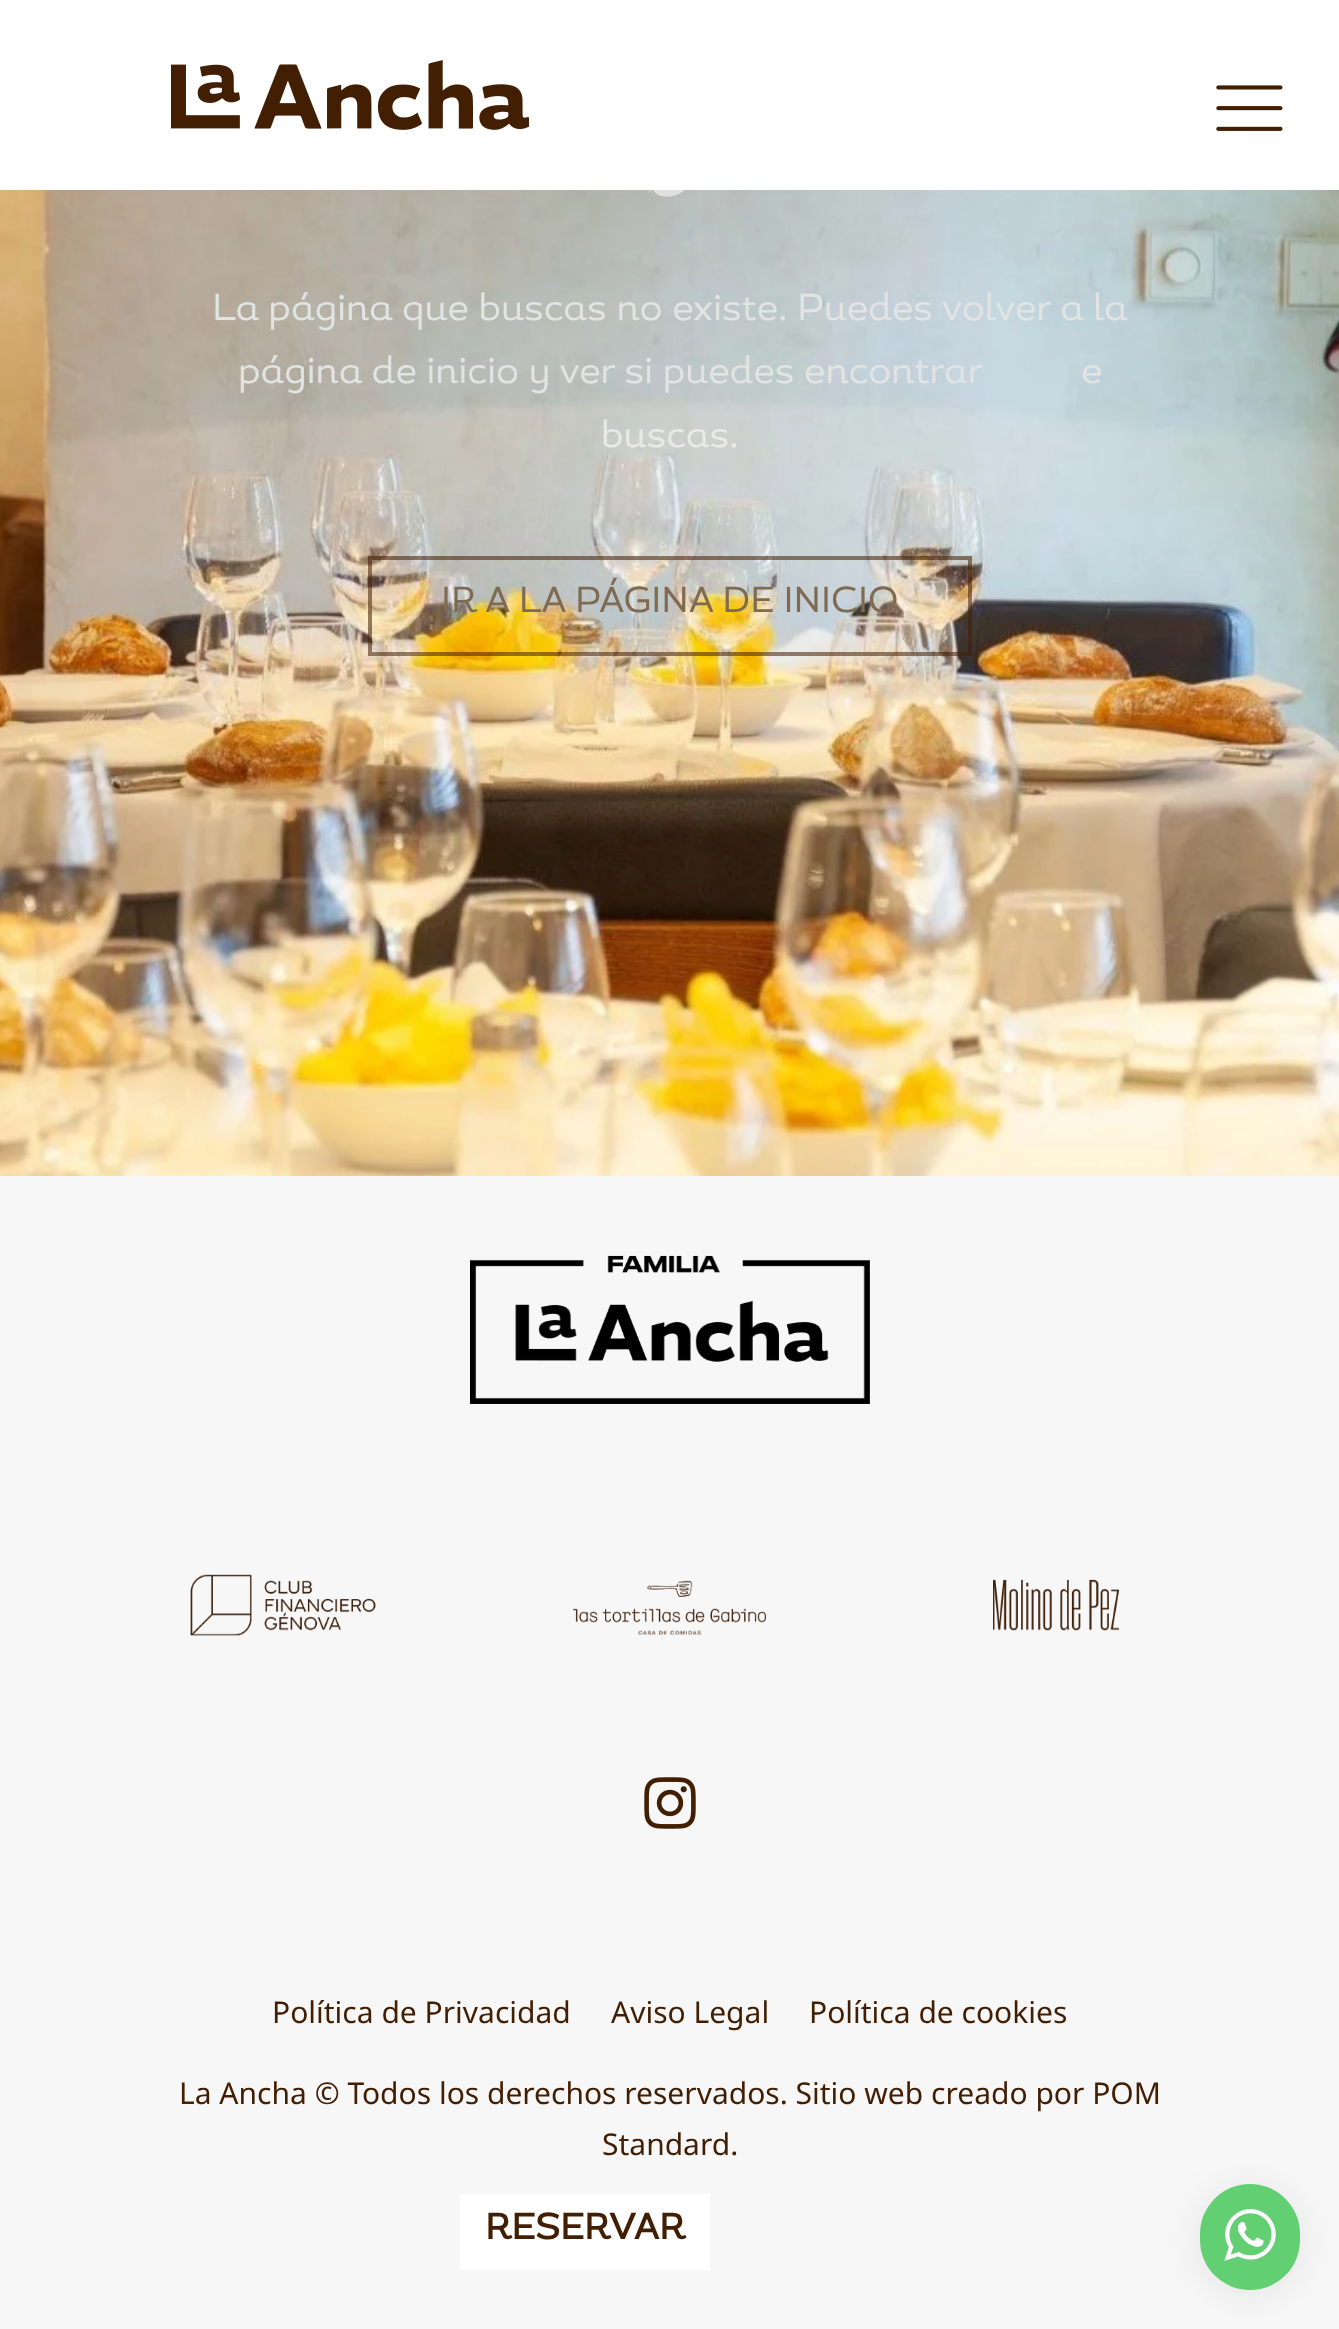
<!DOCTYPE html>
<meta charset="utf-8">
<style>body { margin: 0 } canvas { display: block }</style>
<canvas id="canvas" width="1339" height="2329"></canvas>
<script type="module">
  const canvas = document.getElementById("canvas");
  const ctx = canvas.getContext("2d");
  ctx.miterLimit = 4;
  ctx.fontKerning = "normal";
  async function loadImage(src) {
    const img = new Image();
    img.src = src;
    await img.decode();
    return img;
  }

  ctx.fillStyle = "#f7f7f7";
  ctx.fillRect(0, 0, 1339, 2329);
  ctx.drawImage(await loadImage("img3.png"), 0, 190, 1339, 986);
  ctx.fillStyle = "rgba(255, 255, 255, 0.55)";
  ctx.beginPath();
  ctx.moveTo(690, 156);
  ctx.bezierCurveTo(690, 160, 689, 164, 687, 167);
  ctx.bezierCurveTo(692, 146, 676, 123, 654, 122);
  ctx.bezierCurveTo(660, 129, 663, 140, 659, 149);
  ctx.bezierCurveTo(659, 146, 660, 140, 657, 138);
  ctx.bezierCurveTo(659, 152, 633, 158, 642, 181);
  ctx.bezierCurveTo(644, 186, 647, 190, 652, 193);
  ctx.bezierCurveTo(650, 191, 649, 187, 650, 183);
  ctx.bezierCurveTo(654, 203, 680, 199, 689, 185);
  ctx.bezierCurveTo(695, 176, 695, 165, 690, 156);
  ctx.closePath();
  ctx.fill();
  ctx.fillStyle = "#ffffff";
  ctx.fillRect(0, 0, 1339, 190);
  ctx.drawImage(await loadImage("img1.png"), 170, 60, 360, 70);
  ctx.drawImage(await loadImage("img2.png"), 1216, 85, 67, 46);
  ctx.font = "37.5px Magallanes";
  ctx.fillStyle = "#e1e4e3";
  ctx.fillText("La página que buscas no existe. Puedes volver a la", 212, 320);
  ctx.fillText("página de inicio y ver si puedes encontrar", 238, 383);
  ctx.fillText("e", 1081, 383);
  ctx.fillStyle = "#e7eae7";
  ctx.fillText("buscas.", 601, 447);
  ctx.strokeStyle = "rgba(66, 30, 3, 0.55)";
  ctx.lineWidth = 4;
  ctx.strokeRect(370, 558, 600, 96);
  ctx.font = "36px Magallanes";
  ctx.fillStyle = "#7f6a52";
  ctx.fillText("IR A LA PÁGINA DE INICIO", 441, 612);
  ctx.font = "30px Noto Sans";
  ctx.fillStyle = "#421e03";
  ctx.fillText("Política de Privacidad", 272, 2023);
  ctx.fillText("Aviso Legal", 611, 2023);
  ctx.fillText("Política de cookies", 809, 2023);
  ctx.fillText("La Ancha © Todos los derechos reservados. Sitio web creado por POM", 179, 2104);
  ctx.fillText("Standard.", 602, 2155);
  ctx.drawImage(await loadImage("img4.png"), 644, 1777, 52, 52);
  ctx.drawImage(await loadImage("img5.png"), 470, 1255, 400, 149);
  ctx.drawImage(await loadImage("img6.png"), 190, 1574, 186, 62);
  ctx.drawImage(await loadImage("img7.png"), 573, 1580, 193, 55);
  ctx.drawImage(await loadImage("img8.png"), 993, 1579, 126, 52);
  ctx.fillStyle = "#ffffff";
  ctx.fillRect(460, 2194, 250, 76);
  ctx.font = "bold 36px Magallanes";
  ctx.fillStyle = "#421e03";
  ctx.fillText("RESERVAR", 485, 2239);
  ctx.fillStyle = "rgba(0, 0, 0, 0.08)";
  ctx.filter = "blur(20px)";
  ctx.beginPath();
  ctx.roundRect(1200, 2188, 100, 106, 50);
  ctx.fill();
  ctx.filter = "none";
  ctx.fillStyle = "#62cf72";
  ctx.beginPath();
  ctx.roundRect(1200, 2184, 100, 106, 50);
  ctx.fill();
  ctx.drawImage(await loadImage("img9.png"), 1224, 2209, 52, 52);
</script>
